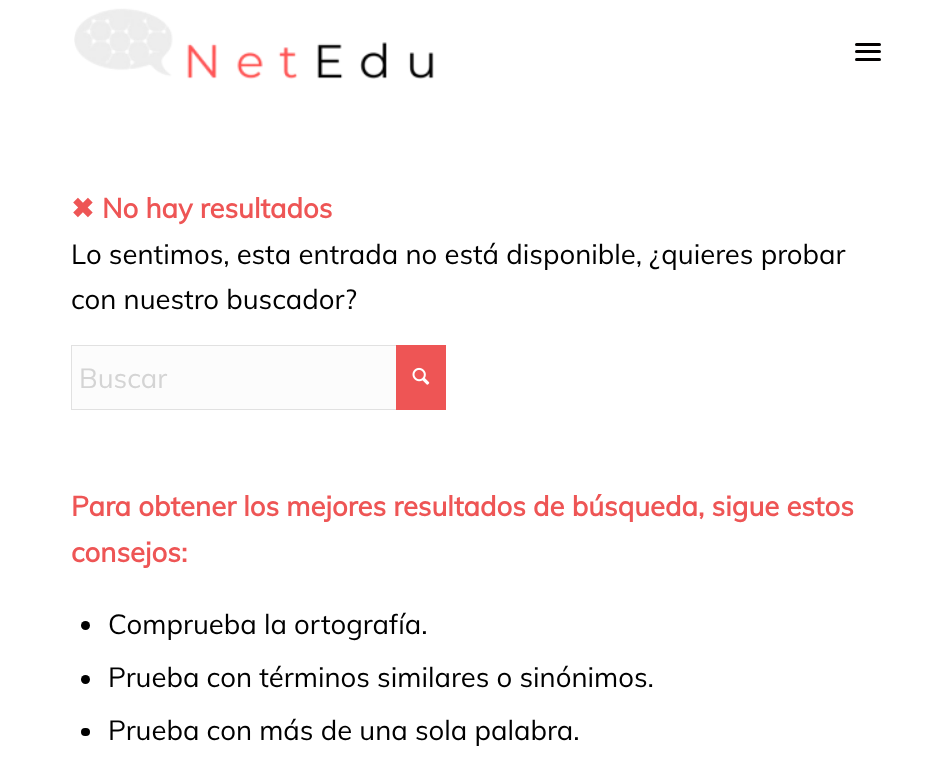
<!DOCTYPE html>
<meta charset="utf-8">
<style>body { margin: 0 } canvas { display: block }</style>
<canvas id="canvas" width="952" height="770"></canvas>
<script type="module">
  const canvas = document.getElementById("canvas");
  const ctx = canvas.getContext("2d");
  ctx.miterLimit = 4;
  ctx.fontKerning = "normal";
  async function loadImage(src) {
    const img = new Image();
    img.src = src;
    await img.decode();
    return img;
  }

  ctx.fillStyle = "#ffffff";
  ctx.fillRect(0, 0, 952, 770);
  ctx.drawImage(await loadImage("img1.png"), 74, 8, 360, 71);
  ctx.fillStyle = "#020000";
  ctx.beginPath();
  ctx.roundRect(855, 50, 26, 3, 1.5);
  ctx.fill();
  ctx.beginPath();
  ctx.roundRect(855, 43, 26, 3, 1.5);
  ctx.fill();
  ctx.beginPath();
  ctx.roundRect(855, 58, 26, 3, 1.5);
  ctx.fill();
  ctx.font = "bold 27.5px DejaVu Sans";
  ctx.fillStyle = "#ee5555";
  ctx.fillText("✖", 71, 218);
  ctx.font = "bold 27.5px Muli";
  ctx.fillText("No hay resultados", 102, 218);
  ctx.font = "27.5px Muli";
  ctx.fillStyle = "#000000";
  ctx.fillText("Lo sentimos, esta entrada no está disponible, ¿quieres probar", 71, 264);
  ctx.fillText("con nuestro buscador?", 71, 309);
  ctx.fillStyle = "#fcfcfc";
  ctx.fillRect(72, 346, 324, 63);
  ctx.strokeStyle = "#e1e1e1";
  ctx.strokeRect(71.5, 345.5, 374, 64);
  ctx.fillStyle = "#d4d4d4";
  ctx.fillText("Buscar", 79, 388);
  ctx.fillStyle = "#ee5555";
  ctx.fillRect(396, 345, 50, 65);
  ctx.drawImage(await loadImage("img2.png"), 412, 367, 18, 18);
  ctx.font = "bold 27.5px Muli";
  ctx.fillText("Para obtener los mejores resultados de búsqueda, sigue estos", 71, 516);
  ctx.fillText("consejos:", 71, 562);
  ctx.fillStyle = "#000000";
  ctx.beginPath();
  ctx.arc(85.5, 625.5, 4.5, 0, Math.PI * 2);
  ctx.fill();
  ctx.font = "27.5px Muli";
  ctx.fillText("Comprueba la ortografía.", 108, 634);
  ctx.beginPath();
  ctx.arc(85.5, 679.5, 4.5, 0, Math.PI * 2);
  ctx.fill();
  ctx.fillText("Prueba con términos similares o sinónimos.", 108, 687);
  ctx.beginPath();
  ctx.roundRect(81, 728, 9, 8, 4);
  ctx.fill();
  ctx.fillText("Prueba con más de una sola palabra.", 108, 740);
</script>
